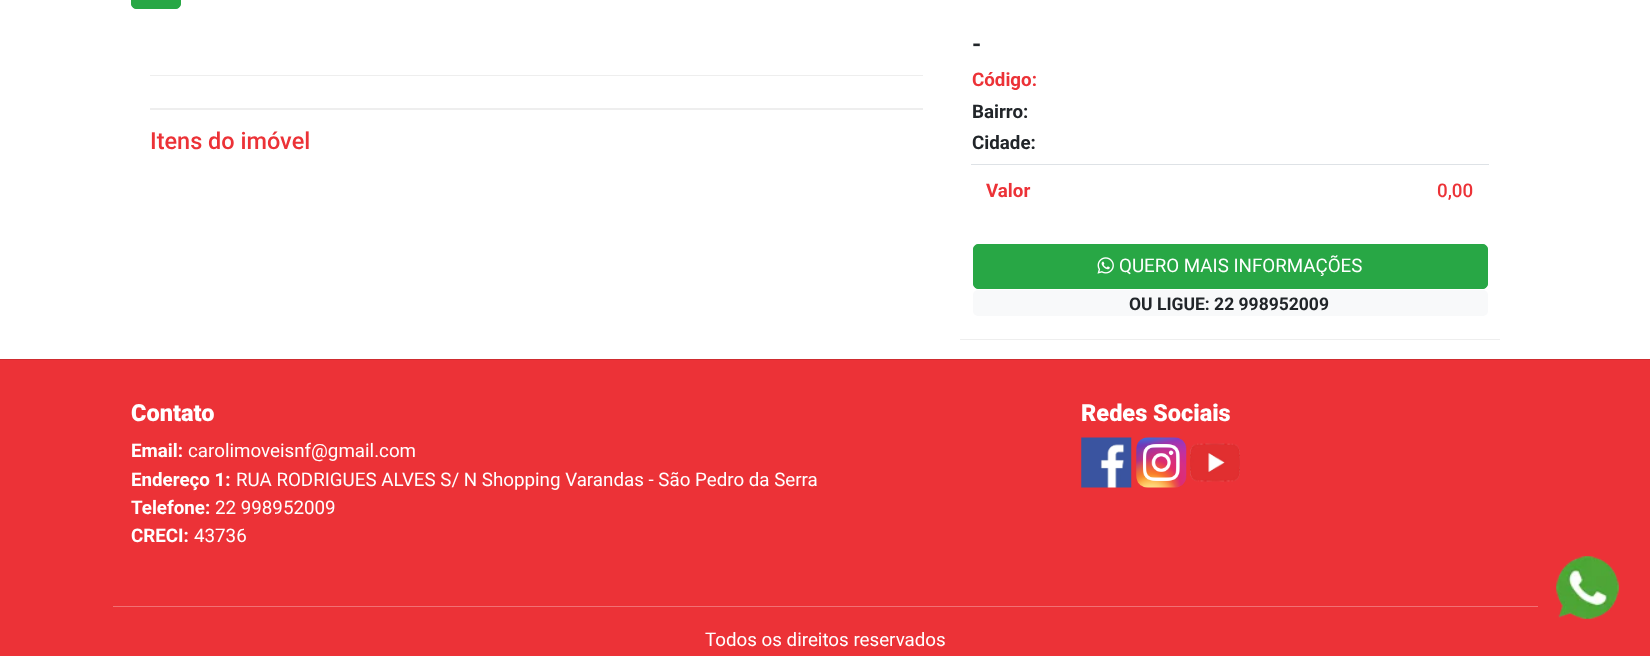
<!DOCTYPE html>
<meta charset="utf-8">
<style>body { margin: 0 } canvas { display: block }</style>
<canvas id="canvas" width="1650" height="656"></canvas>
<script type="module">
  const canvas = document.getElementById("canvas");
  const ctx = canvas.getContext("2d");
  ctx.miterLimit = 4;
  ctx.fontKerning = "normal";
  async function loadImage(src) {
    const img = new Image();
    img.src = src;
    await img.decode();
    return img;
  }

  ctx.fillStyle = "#ffffff";
  ctx.fillRect(0, 0, 1650, 656);
  ctx.fillStyle = "#28a745";
  ctx.beginPath();
  ctx.roundRect(131.5, -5.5, 49, 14, 4.5);
  ctx.fill();
  ctx.strokeStyle = "#28a745";
  ctx.stroke();
  ctx.fillStyle = "#eeeeee";
  ctx.fillRect(150, 75, 773, 1);
  ctx.fillRect(150, 108, 773, 2);
  ctx.font = "500 23.5px Roboto";
  ctx.fillStyle = "#ec3237";
  ctx.fillText("Itens do imóvel", 150, 149);
  ctx.fillStyle = "#eeeeee";
  ctx.fillRect(960, 339, 540, 1);
  ctx.font = "bold 23.5px Roboto";
  ctx.fillStyle = "#212529";
  ctx.fillText("-", 972, 52);
  ctx.font = "bold 18.75px Roboto";
  ctx.fillStyle = "#ec3237";
  ctx.fillText("Código:", 972, 86);
  ctx.fillStyle = "#212529";
  ctx.fillText("Bairro:", 972, 118);
  ctx.fillText("Cidade:", 972, 149);
  ctx.fillStyle = "#ec3237";
  ctx.fillText("Valor", 986, 197);
  ctx.fillStyle = "#dee2e6";
  ctx.fillRect(971, 164, 518, 1);
  ctx.font = "500 18.75px Roboto";
  ctx.fillStyle = "#ec3237";
  ctx.fillText("0,00", 1437, 197);
  ctx.fillStyle = "#28a745";
  ctx.beginPath();
  ctx.roundRect(973.5, 244.5, 514, 44, 4.5);
  ctx.fill();
  ctx.stroke();
  ctx.drawImage(await loadImage("img1.png"), 1097, 257, 17, 17);
  ctx.font = "18.75px Roboto";
  ctx.fillStyle = "#ffffff";
  ctx.fillText("QUERO MAIS INFORMAÇÕES", 1119, 272);
  ctx.fillStyle = "#f8f9fa";
  ctx.beginPath();
  ctx.roundRect(973, 290, 515, 26, 5);
  ctx.fill();
  ctx.font = "bold 17.5px Roboto";
  ctx.fillStyle = "#212529";
  ctx.fillText("OU LIGUE: 22 998952009", 1129, 310);
  ctx.fillStyle = "#ec3237";
  ctx.fillRect(0, 360, 1650, 296);
  ctx.fillStyle = "#cf2c30";
  ctx.fillRect(0, 359, 1650, 1);
  ctx.font = "900 23.5px Roboto";
  ctx.fillStyle = "#ffffff";
  ctx.fillText("Contato", 131, 421);
  ctx.font = "bold 18.75px Roboto";
  ctx.fillText("Email:", 131, 457);
  ctx.font = "18.75px Roboto";
  ctx.fillText("carolimoveisnf@gmail.com", 188, 457);
  ctx.font = "bold 18.75px Roboto";
  ctx.fillText("Endereço 1:", 131, 486);
  ctx.font = "18.75px Roboto";
  ctx.fillText("RUA RODRIGUES ALVES S/ N Shopping Varandas - São Pedro da Serra", 236, 486);
  ctx.font = "bold 18.75px Roboto";
  ctx.fillText("Telefone:", 131, 514);
  ctx.font = "18.75px Roboto";
  ctx.fillText("22 998952009", 215, 514);
  ctx.font = "bold 18.75px Roboto";
  ctx.fillText("CRECI:", 131, 542);
  ctx.font = "18.75px Roboto";
  ctx.fillText("43736", 194, 542);
  ctx.font = "900 23.5px Roboto";
  ctx.fillText("Redes Sociais", 1081, 421);
  ctx.drawImage(await loadImage("img2.png"), 1081, 437, 51, 51);
  ctx.drawImage(await loadImage("img3.png"), 1136, 437, 51, 51);
  ctx.drawImage(await loadImage("img4.png"), 1190, 443, 50, 39);
  ctx.fillStyle = "#f27073";
  ctx.fillRect(113, 606, 1425, 1);
  ctx.font = "18.75px Roboto";
  ctx.fillStyle = "#ffffff";
  ctx.fillText("Todos os direitos reservados", 705, 646);
  ctx.drawImage(await loadImage("img5.png"), 1556, 556, 63, 63);
</script>
